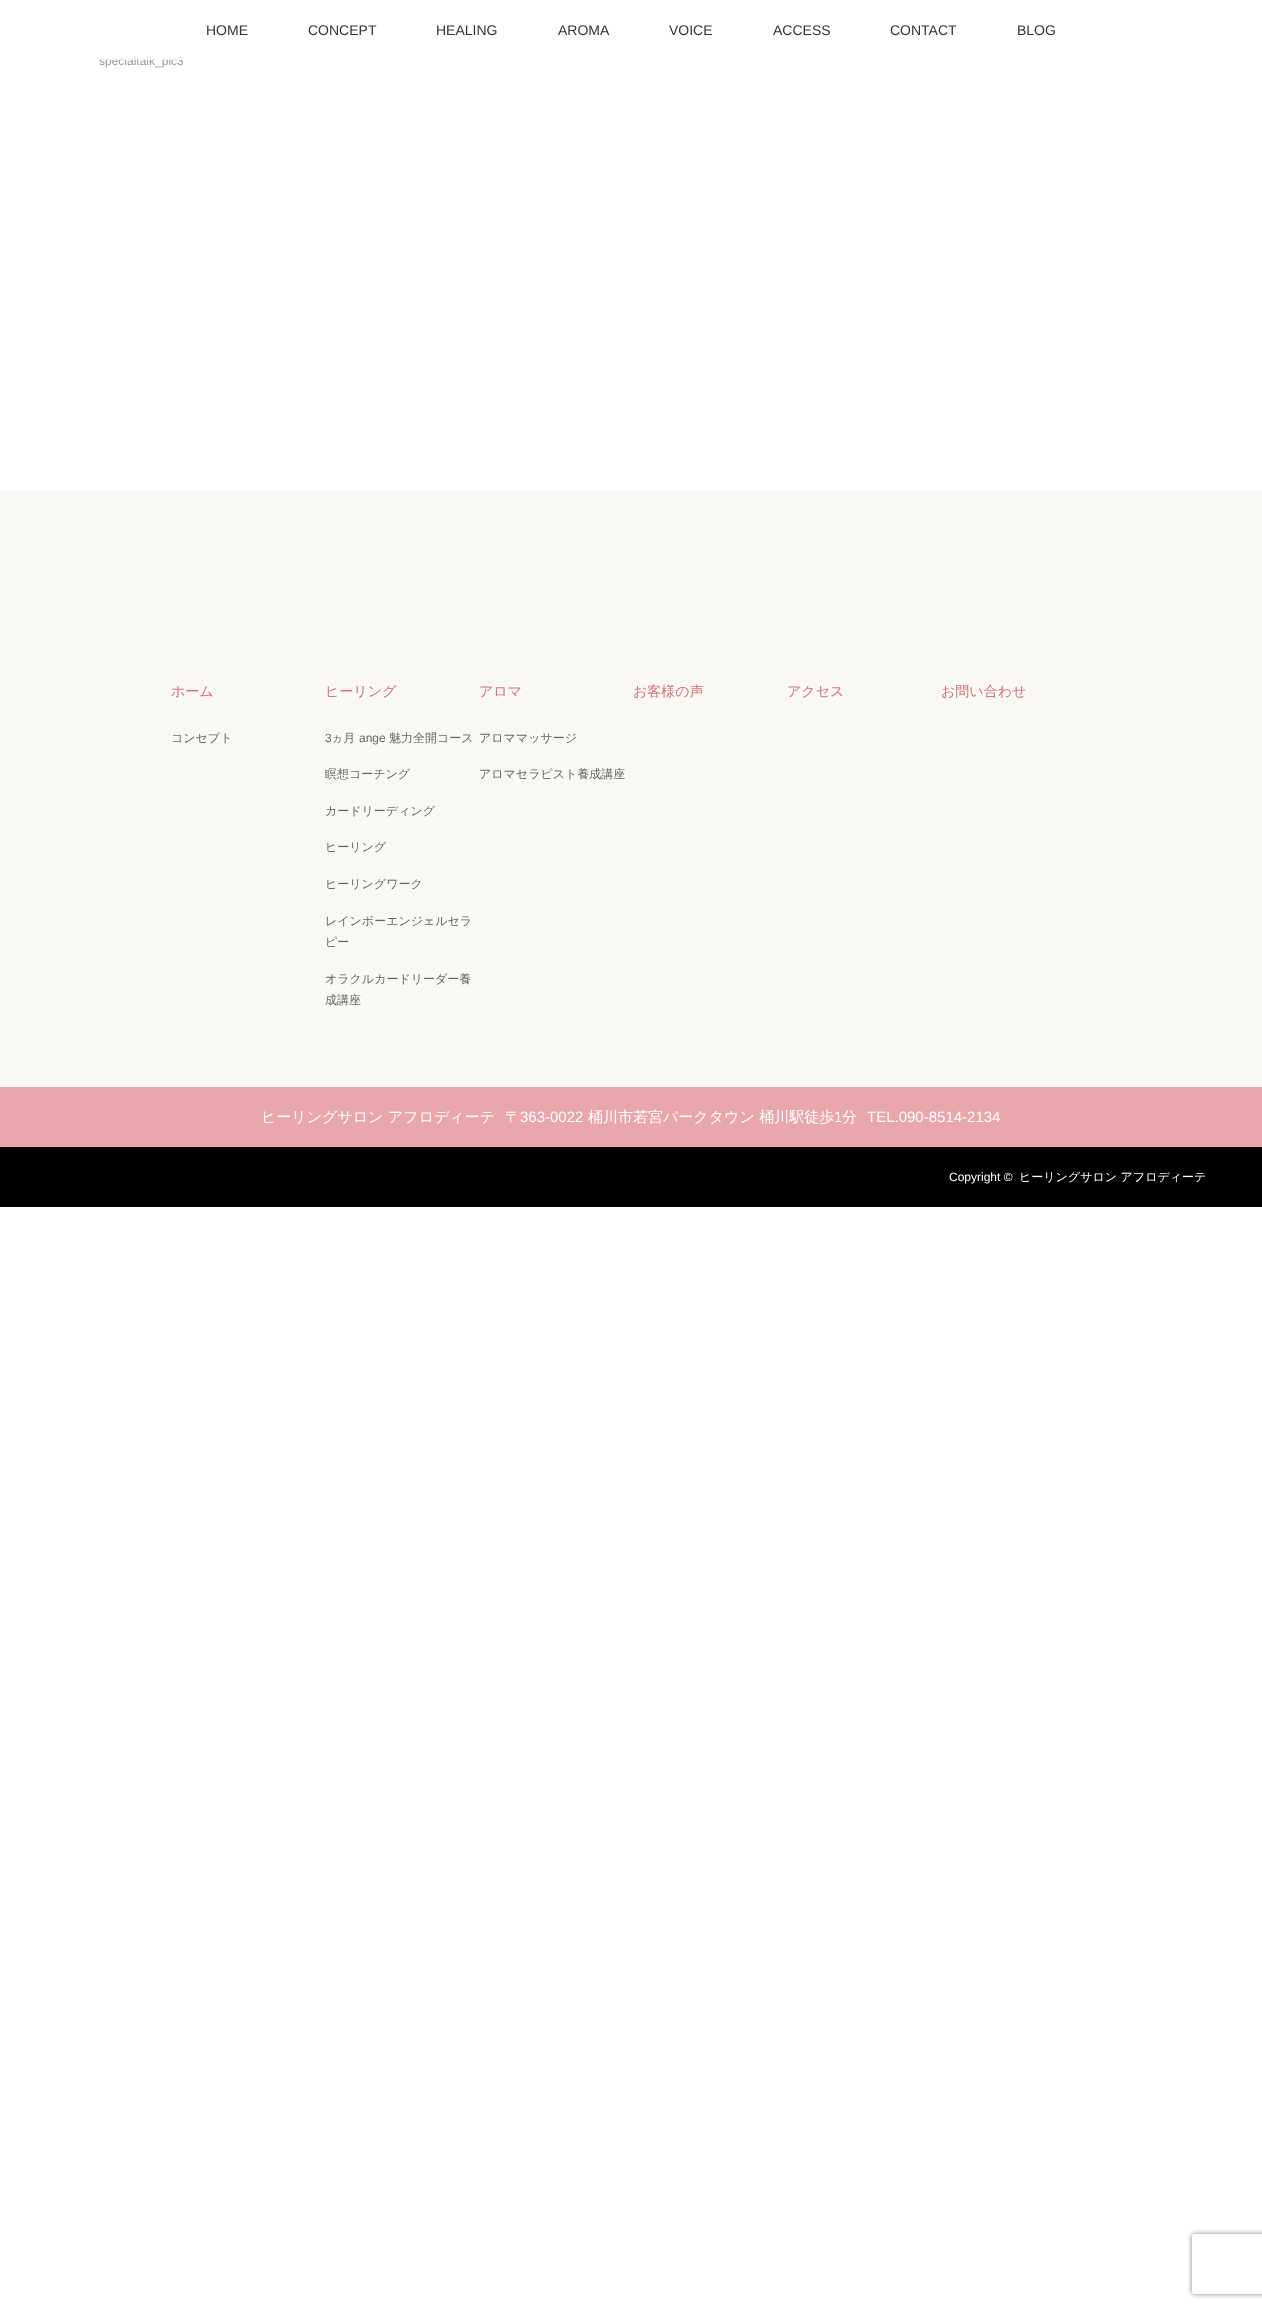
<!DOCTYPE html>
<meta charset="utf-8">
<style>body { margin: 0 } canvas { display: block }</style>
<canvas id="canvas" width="1262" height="2308"></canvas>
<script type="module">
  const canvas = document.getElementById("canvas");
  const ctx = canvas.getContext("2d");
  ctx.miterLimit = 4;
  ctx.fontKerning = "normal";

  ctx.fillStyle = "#ffffff";
  ctx.fillRect(0, 0, 1262, 2308);
  ctx.font = "12px Liberation Sans";
  ctx.fillStyle = "#999999";
  ctx.fillText("specialtalk_pic3", 99, 65);
  ctx.fillStyle = "rgba(255, 255, 255, 0.7)";
  ctx.fillRect(99, 56, 84, 4);
  ctx.font = "14px Liberation Sans";
  ctx.fillStyle = "#333333";
  ctx.fillText("HOME", 206, 35);
  ctx.fillText("CONCEPT", 308, 35);
  ctx.fillText("HEALING", 436, 35);
  ctx.fillText("AROMA", 558, 35);
  ctx.fillText("VOICE", 669, 35);
  ctx.fillText("ACCESS", 773, 35);
  ctx.fillText("CONTACT", 890, 35);
  ctx.fillText("BLOG", 1017, 35);
  ctx.fillStyle = "#f9f8f4";
  ctx.fillRect(0, 491, 1262, 596);
  ctx.font = "500 14px WenQuanYi Zen Hei";
  ctx.fillStyle = "#d86f7c";
  ctx.fillText("ホーム", 171, 696);
  ctx.font = "500 12px WenQuanYi Zen Hei";
  ctx.fillStyle = "#666666";
  ctx.fillText("コンセプト", 171, 742);
  ctx.font = "500 14px WenQuanYi Zen Hei";
  ctx.fillStyle = "#d86f7c";
  ctx.fillText("ヒーリング", 325, 696);
  ctx.font = "12px Liberation Sans";
  ctx.fillStyle = "#666666";
  ctx.fillText("3", 325, 742);
  ctx.font = "500 12px WenQuanYi Zen Hei";
  ctx.fillText("ヵ月", 331, 742);
  ctx.font = "12px Liberation Sans";
  ctx.fillText("ange", 359, 742);
  ctx.font = "500 12px WenQuanYi Zen Hei";
  ctx.fillText("魅力全開コース", 389, 742);
  ctx.fillText("瞑想コーチング", 325, 778);
  ctx.fillText("カードリーディング", 325, 815);
  ctx.fillText("ヒーリング", 325, 851);
  ctx.fillText("ヒーリングワーク", 325, 888);
  ctx.fillText("レインボーエンジェルセラ", 325, 925);
  ctx.fillText("ピー", 325, 946);
  ctx.fillText("オラクルカードリーダー養", 325, 983);
  ctx.fillText("成講座", 325, 1004);
  ctx.font = "500 14px WenQuanYi Zen Hei";
  ctx.fillStyle = "#d86f7c";
  ctx.fillText("アロマ", 479, 696);
  ctx.font = "500 12px WenQuanYi Zen Hei";
  ctx.fillStyle = "#666666";
  ctx.fillText("アロママッサージ", 479, 742);
  ctx.fillText("アロマセラピスト養成講座", 479, 778);
  ctx.font = "500 14px WenQuanYi Zen Hei";
  ctx.fillStyle = "#d86f7c";
  ctx.fillText("お客様の声", 633, 696);
  ctx.fillText("アクセス", 787, 696);
  ctx.fillText("お問い合わせ", 941, 696);
  ctx.fillStyle = "#e9a7ab";
  ctx.fillRect(0, 1087, 1262, 60);
  ctx.font = "500 15px WenQuanYi Zen Hei";
  ctx.fillStyle = "#ffffff";
  ctx.fillText("ヒーリングサロン アフロディーテ", 261, 1122);
  ctx.fillText("〒", 505, 1122);
  ctx.font = "15px Liberation Sans";
  ctx.fillText("363-0022", 520, 1122);
  ctx.font = "500 15px WenQuanYi Zen Hei";
  ctx.fillText("桶川市若宮パークタウン 桶川駅徒歩", 588, 1122);
  ctx.font = "15px Liberation Sans";
  ctx.fillText("1", 834, 1122);
  ctx.font = "500 15px WenQuanYi Zen Hei";
  ctx.fillText("分", 842, 1122);
  ctx.font = "15px Liberation Sans";
  ctx.fillText("TEL.090-8514-2134", 867, 1122);
  ctx.fillStyle = "#000000";
  ctx.fillRect(0, 1147, 1262, 60);
  ctx.font = "12px Liberation Sans";
  ctx.fillStyle = "#ffffff";
  ctx.fillText("Copyright ©", 949, 1181);
  ctx.font = "500 12px WenQuanYi Zen Hei";
  ctx.fillText("ヒーリングサロン アフロディーテ", 1019, 1181);
  ctx.save();
  ctx.beginPath();
  ctx.moveTo(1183, 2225);
  ctx.lineTo(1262, 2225);
  ctx.lineTo(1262, 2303);
  ctx.lineTo(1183, 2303);
  ctx.closePath();
  ctx.moveTo(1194, 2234);
  ctx.lineTo(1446, 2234);
  ctx.bezierCurveTo(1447, 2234, 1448, 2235, 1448, 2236);
  ctx.lineTo(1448, 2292);
  ctx.bezierCurveTo(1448, 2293, 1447, 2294, 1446, 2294);
  ctx.lineTo(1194, 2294);
  ctx.bezierCurveTo(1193, 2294, 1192, 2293, 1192, 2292);
  ctx.lineTo(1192, 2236);
  ctx.bezierCurveTo(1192, 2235, 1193, 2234, 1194, 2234);
  ctx.closePath();
  ctx.clip("evenodd");
  ctx.fillStyle = "#808080";
  ctx.filter = "blur(2.5px)";
  ctx.beginPath();
  ctx.roundRect(1192, 2234, 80, 60, 2);
  ctx.fill();
  ctx.filter = "none";
  ctx.restore();
</script>
